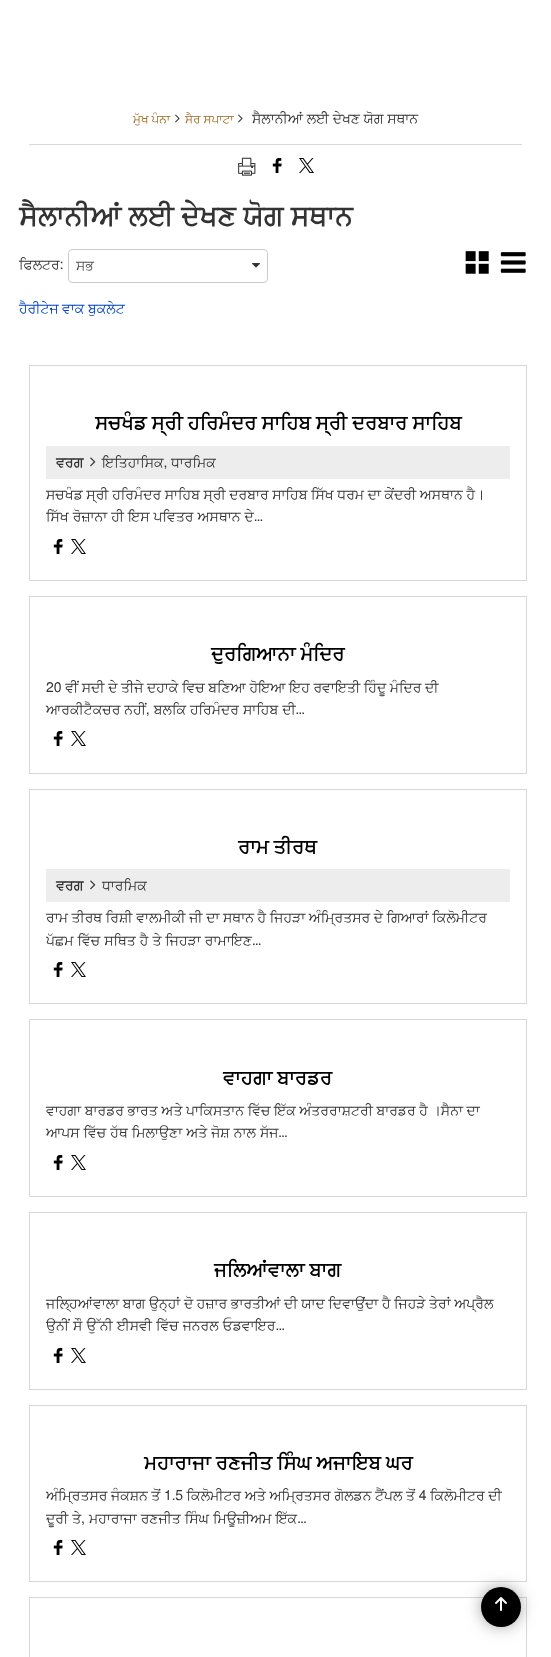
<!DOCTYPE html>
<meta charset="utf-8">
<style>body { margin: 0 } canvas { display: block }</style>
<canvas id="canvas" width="551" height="1657"></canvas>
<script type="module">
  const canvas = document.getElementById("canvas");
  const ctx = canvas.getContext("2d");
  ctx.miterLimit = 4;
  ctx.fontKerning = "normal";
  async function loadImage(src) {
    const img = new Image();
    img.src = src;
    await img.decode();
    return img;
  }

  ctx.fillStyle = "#ffffff";
  ctx.fillRect(0, 0, 551, 1657);
  ctx.fillStyle = "#d8d8d8";
  ctx.fillRect(29, 144, 493, 1);
  ctx.font = "12px FreeSans";
  ctx.fillStyle = "#9e6b22";
  ctx.fillText("ਮੁੱਖ ਪੰਨਾ", 133, 123);
  ctx.drawImage(await loadImage("img1.png"), 175, 114, 5, 9);
  ctx.fillText("ਸੈਰ ਸਪਾਟਾ", 185, 123);
  ctx.drawImage(await loadImage("img1.png"), 238, 114, 5, 9);
  ctx.wordSpacing = "0.1px";
  ctx.font = "14px FreeSans";
  ctx.fillStyle = "#333333";
  ctx.fillText("ਸੈਲਾਨੀਆਂ ਲਈ ਦੇਖਣ ਯੋਗ ਸਥਾਨ", 252, 123);
  ctx.drawImage(await loadImage("img2.png"), 238, 157, 18, 19);
  ctx.drawImage(await loadImage("img3.png"), 272, 158, 10, 15);
  ctx.drawImage(await loadImage("img4.png"), 299, 158, 15, 15);
  ctx.wordSpacing = "0.5px";
  ctx.font = "bold 28px FreeSans";
  ctx.fillText("ਸੈਲਾਨੀਆਂ ਲਈ ਦੇਖਣ ਯੋਗ ਸਥਾਨ", 19, 225);
  ctx.wordSpacing = "0px";
  ctx.font = "14px FreeSans";
  ctx.fillText("ਫਿਲਟਰ:", 19, 269);
  ctx.drawImage(await loadImage("img5.png"), 252, 263, 8, 5);
  ctx.beginPath();
  ctx.roundRect(68.5, 249.5, 199, 33, 3.5);
  ctx.strokeStyle = "#cccccc";
  ctx.stroke();
  ctx.fillStyle = "#555555";
  ctx.fillText("ਸਭ", 76, 270);
  ctx.drawImage(await loadImage("img6.png"), 465, 251, 24, 23);
  ctx.drawImage(await loadImage("img7.png"), 500, 252, 26, 21);
  ctx.fillStyle = "#0042bf";
  ctx.fillText("ਹੈਰੀਟੇਜ ਵਾਕ ਬੁਕਲੇਟ", 19, 313);
  ctx.strokeStyle = "#d8d8d8";
  ctx.strokeRect(29.5, 365.5, 497, 215);
  ctx.wordSpacing = "0.25px";
  ctx.font = "bold 19.6px FreeSans";
  ctx.fillStyle = "#000000";
  ctx.fillText("ਸਚਖੰਡ ਸ੍ਰੀ ਹਰਿਮੰਦਰ ਸਾਹਿਬ ਸ੍ਰੀ ਦਰਬਾਰ ਸਾਹਿਬ", 95, 429);
  ctx.fillStyle = "#ededed";
  ctx.fillRect(46, 446, 464, 33);
  ctx.wordSpacing = "0px";
  ctx.font = "bold 14px FreeSans";
  ctx.fillStyle = "#333333";
  ctx.fillText("ਵਰਗ", 56, 467);
  ctx.drawImage(await loadImage("img8.png"), 90, 457, 6, 10);
  ctx.font = "14px FreeSans";
  ctx.fillText("ਇਤਿਹਾਸਿਕ, ਧਾਰਮਿਕ", 102, 467);
  ctx.wordSpacing = "0.1px";
  ctx.fillText("ਸਚਖੰਡ ਸ੍ਰੀ ਹਰਿਮੰਦਰ ਸਾਹਿਬ ਸ੍ਰੀ ਦਰਬਾਰ ਸਾਹਿਬ ਸਿੱਖ ਧਰਮ ਦਾ ਕੇਂਦਰੀ ਅਸਥਾਨ ਹੈ।", 46, 499);
  ctx.save();
  ctx.beginPath();
  ctx.rect(46, 484, 464, 45);
  ctx.clip();
  ctx.wordSpacing = "0.5px";
  ctx.fillText("ਸਿੱਖ ਰੋਜ਼ਾਨਾ ਹੀ ਇਸ ਪਵਿਤਰ ਅਸਥਾਨ ਦੇ…", 46, 521);
  ctx.restore();
  ctx.drawImage(await loadImage("img3.png"), 53, 539, 10, 15);
  ctx.drawImage(await loadImage("img4.png"), 71, 539, 15, 15);
  ctx.strokeRect(29.5, 596.5, 497, 177);
  ctx.wordSpacing = "0px";
  ctx.font = "bold 19.6px FreeSans";
  ctx.fillStyle = "#000000";
  ctx.fillText("ਦੁਰਗਿਆਨਾ ਮੰਦਿਰ", 211, 660);
  ctx.wordSpacing = "0.1px";
  ctx.font = "14px FreeSans";
  ctx.fillStyle = "#333333";
  ctx.fillText("20 ਵੀਂ ਸਦੀ ਦੇ ਤੀਜੇ ਦਹਾਕੇ ਵਿਚ ਬਣਿਆ ਹੋਇਆ ਇਹ ਰਵਾਇਤੀ ਹਿੰਦੂ ਮੰਦਿਰ ਦੀ", 46, 692);
  ctx.wordSpacing = "0.5px";
  ctx.fillText("ਆਰਕੀਟੈਕਚਰ ਨਹੀਂ, ਬਲਕਿ ਹਰਿਮੰਦਰ ਸਾਹਿਬ ਦੀ…", 46, 714);
  ctx.drawImage(await loadImage("img3.png"), 53, 731, 10, 15);
  ctx.drawImage(await loadImage("img4.png"), 71, 731, 15, 15);
  ctx.strokeRect(29.5, 789.5, 497, 214);
  ctx.wordSpacing = "0px";
  ctx.font = "bold 19.6px FreeSans";
  ctx.fillStyle = "#000000";
  ctx.fillText("ਰਾਮ ਤੀਰਥ", 238, 853);
  ctx.fillStyle = "#ededed";
  ctx.fillRect(46, 869, 464, 33);
  ctx.font = "bold 14px FreeSans";
  ctx.fillStyle = "#333333";
  ctx.fillText("ਵਰਗ", 56, 890);
  ctx.drawImage(await loadImage("img8.png"), 90, 880, 6, 10);
  ctx.font = "14px FreeSans";
  ctx.fillText("ਧਾਰਮਿਕ", 102, 890);
  ctx.wordSpacing = "0.1px";
  ctx.fillText("ਰਾਮ ਤੀਰਥ ਰਿਸ਼ੀ ਵਾਲਮੀਕੀ ਜੀ ਦਾ ਸਥਾਨ ਹੈ ਜਿਹੜਾ ਅੰਮ੍ਰਿਤਸਰ ਦੇ ਗਿਆਰਾਂ ਕਿਲੋਮੀਟਰ", 46, 922);
  ctx.save();
  ctx.beginPath();
  ctx.rect(46, 907, 464, 45);
  ctx.clip();
  ctx.wordSpacing = "0.5px";
  ctx.fillText("ਪੱਛਮ ਵਿੱਚ ਸਥਿਤ ਹੈ ਤੇ ਜਿਹੜਾ ਰਾਮਾਇਣ…", 46, 945);
  ctx.restore();
  ctx.drawImage(await loadImage("img3.png"), 53, 962, 10, 15);
  ctx.drawImage(await loadImage("img4.png"), 71, 962, 15, 15);
  ctx.strokeRect(29.5, 1019.5, 497, 177);
  ctx.wordSpacing = "0px";
  ctx.font = "bold 19.6px FreeSans";
  ctx.fillStyle = "#000000";
  ctx.fillText("ਵਾਹਗਾ ਬਾਰਡਰ", 223, 1084);
  ctx.wordSpacing = "0.1px";
  ctx.font = "14px FreeSans";
  ctx.fillStyle = "#333333";
  ctx.fillText("ਵਾਹਗਾ ਬਾਰਡਰ ਭਾਰਤ ਅਤੇ ਪਾਕਿਸਤਾਨ ਵਿੱਚ ਇੱਕ ਅੰਤਰਰਾਸ਼ਟਰੀ ਬਾਰਡਰ ਹੈ ।ਸੈਨਾ ਦਾ", 46, 1115);
  ctx.wordSpacing = "0.5px";
  ctx.fillText("ਆਪਸ ਵਿੱਚ ਹੱਥ ਮਿਲਾਉਣਾ ਅਤੇ ਜੋਸ਼ ਨਾਲ ਸੱਜ…", 46, 1137);
  ctx.drawImage(await loadImage("img3.png"), 53, 1155, 10, 15);
  ctx.drawImage(await loadImage("img4.png"), 71, 1155, 15, 15);
  ctx.strokeRect(29.5, 1212.5, 497, 177);
  ctx.wordSpacing = "0px";
  ctx.font = "bold 19.6px FreeSans";
  ctx.fillStyle = "#000000";
  ctx.fillText("ਜਲਿਆਂਵਾਲਾ ਬਾਗ", 214, 1276);
  ctx.wordSpacing = "0.1px";
  ctx.font = "14px FreeSans";
  ctx.fillStyle = "#333333";
  ctx.fillText("ਜਲ੍ਹਿਆਂਵਾਲਾ ਬਾਗ ਉਨ੍ਹਾਂ ਦੋ ਹਜ਼ਾਰ ਭਾਰਤੀਆਂ ਦੀ ਯਾਦ ਦਿਵਾਉਂਦਾ ਹੈ ਜਿਹੜੇ ਤੇਰਾਂ ਅਪ੍ਰੈਲ", 46, 1308);
  ctx.wordSpacing = "0.5px";
  ctx.fillText("ਉਨੀਂ ਸੌ ਉੱਨੀ ਈਸਵੀ ਵਿੱਚ ਜਨਰਲ ਓਡਵਾਇਰ…", 46, 1330);
  ctx.drawImage(await loadImage("img3.png"), 53, 1348, 10, 15);
  ctx.drawImage(await loadImage("img4.png"), 71, 1348, 15, 15);
  ctx.strokeRect(29.5, 1405.5, 497, 176);
  ctx.wordSpacing = "0.25px";
  ctx.font = "bold 19.6px FreeSans";
  ctx.fillStyle = "#000000";
  ctx.fillText("ਮਹਾਰਾਜਾ ਰਣਜੀਤ ਸਿੰਘ ਅਜਾਇਬ ਘਰ", 144, 1469);
  ctx.save();
  ctx.beginPath();
  ctx.rect(46, 1485, 464, 45);
  ctx.clip();
  ctx.wordSpacing = "0.1px";
  ctx.font = "14px FreeSans";
  ctx.fillStyle = "#333333";
  ctx.fillText("ਅੰਮ੍ਰਿਤਸਰ ਜੰਕਸ਼ਨ ਤੋਂ 1.5 ਕਿਲੋਮੀਟਰ ਅਤੇ ਅਮ੍ਰਿਤਸਰ ਗੋਲਡਨ ਟੈਂਪਲ ਤੋਂ 4 ਕਿਲੋਮੀਟਰ ਦੀ", 46, 1500);
  ctx.wordSpacing = "0.5px";
  ctx.fillText("ਦੂਰੀ ਤੇ, ਮਹਾਰਾਜਾ ਰਣਜੀਤ ਸਿੰਘ ਮਿਊਜ਼ੀਅਮ ਇੱਕ…", 46, 1523);
  ctx.restore();
  ctx.drawImage(await loadImage("img3.png"), 53, 1540, 10, 15);
  ctx.drawImage(await loadImage("img4.png"), 71, 1540, 15, 15);
  ctx.strokeRect(29.5, 1597.5, 497, 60);
  ctx.fillStyle = "#3c3c3c";
  ctx.filter = "blur(9.5px)";
  ctx.beginPath();
  ctx.roundRect(486, 1592, 30, 30, 15);
  ctx.fill();
  ctx.filter = "none";
  ctx.fillStyle = "#000000";
  ctx.beginPath();
  ctx.arc(501, 1607, 20, 0, Math.PI * 2);
  ctx.fill();
  ctx.drawImage(await loadImage("img9.png"), 495, 1597, 12, 14);
</script>
